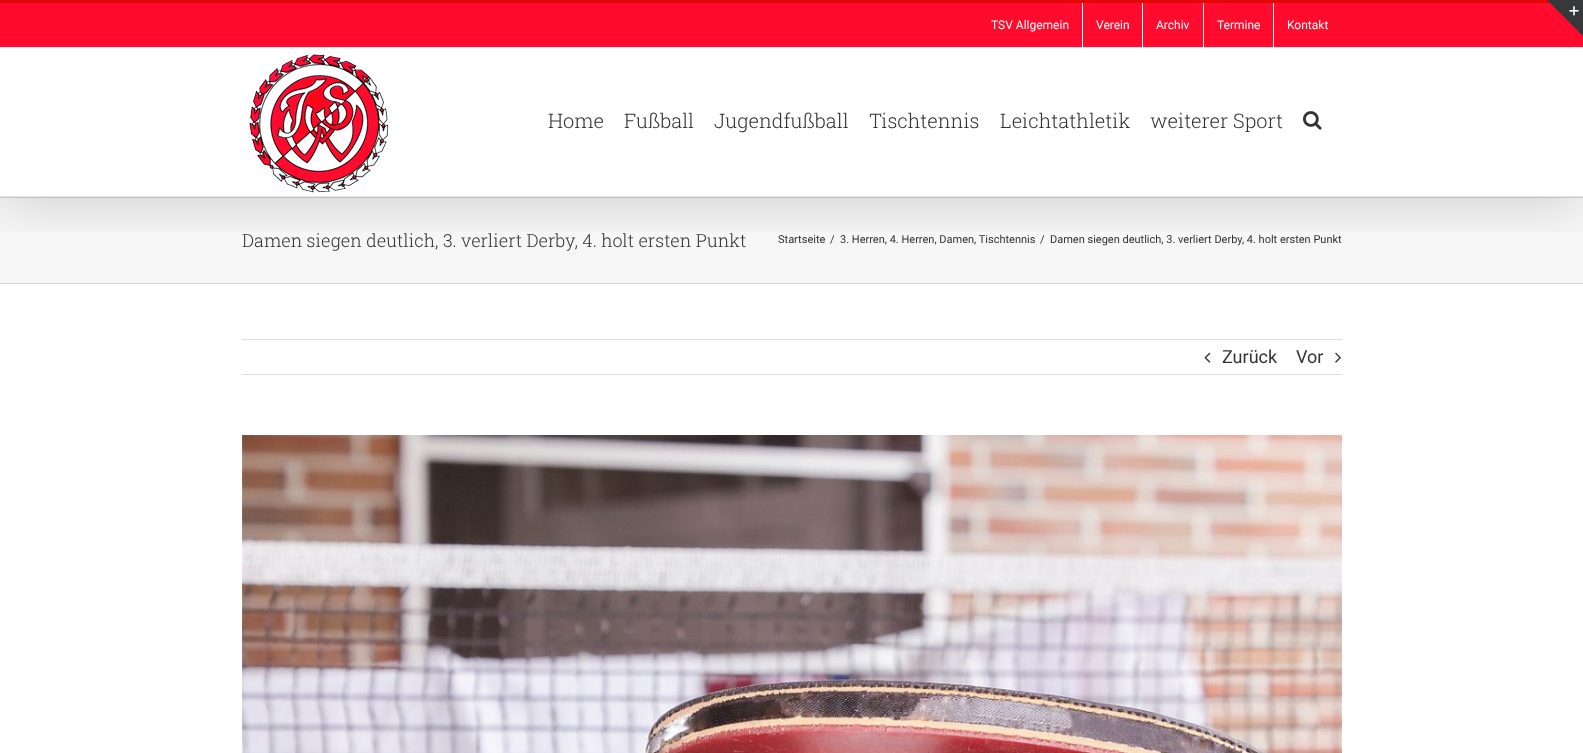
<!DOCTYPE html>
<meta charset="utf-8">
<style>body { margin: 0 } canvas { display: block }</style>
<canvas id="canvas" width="1583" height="753"></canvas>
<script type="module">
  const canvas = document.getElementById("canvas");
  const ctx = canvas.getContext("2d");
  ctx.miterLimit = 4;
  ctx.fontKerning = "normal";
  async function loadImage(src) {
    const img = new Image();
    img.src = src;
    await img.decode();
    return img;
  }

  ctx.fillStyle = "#ffffff";
  ctx.fillRect(0, 0, 1583, 753);
  ctx.fillStyle = "#f6f6f6";
  ctx.fillRect(0, 198, 1583, 85);
  ctx.fillStyle = "#d2d3d4";
  ctx.fillRect(0, 197, 1583, 1);
  ctx.save();
  ctx.beginPath();
  ctx.rect(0, 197, 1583, 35);
  ctx.clip();
  ctx.fillStyle = "rgba(0, 0, 0, 0.14)";
  ctx.filter = "blur(25px)";
  ctx.beginPath();
  ctx.rect(2, 12, 1579, 193);
  ctx.fill();
  ctx.filter = "none";
  ctx.restore();
  ctx.fillStyle = "#fe0b2d";
  ctx.fillRect(0, 3, 1583, 44);
  ctx.fillStyle = "#e10707";
  ctx.fillRect(0, 0, 1550, 3);
  ctx.fillStyle = "#e5e5e5";
  ctx.fillRect(0, 47, 1583, 1);
  ctx.font = "12px Roboto";
  ctx.fillStyle = "#ffffff";
  ctx.fillText("TSV Allgemein", 991, 29);
  ctx.fillRect(1082, 3, 1, 44);
  ctx.fillText("Verein", 1096, 29);
  ctx.fillRect(1142, 3, 1, 44);
  ctx.fillText("Archiv", 1156, 29);
  ctx.fillRect(1203, 3, 1, 44);
  ctx.fillText("Termine", 1217, 29);
  ctx.fillRect(1273, 3, 1, 44);
  ctx.fillText("Kontakt", 1287, 29);
  ctx.fillStyle = "#e5e5e5";
  ctx.fillRect(0, 196, 1583, 1);
  ctx.drawImage(await loadImage("img1.png"), 249, 54, 140, 139);
  ctx.font = "300 20px Roboto Slab";
  ctx.fillStyle = "#333333";
  ctx.fillText("Home", 548, 128);
  ctx.fillText("Fußball", 624, 128);
  ctx.fillText("Jugendfußball", 714, 128);
  ctx.fillText("Tischtennis", 869, 128);
  ctx.fillText("Leichtathletik", 1000, 128);
  ctx.fillText("weiterer Sport", 1150, 128);
  ctx.drawImage(await loadImage("img2.png"), 1303, 111, 19, 19);
  ctx.fillStyle = "#363839";
  ctx.beginPath();
  ctx.moveTo(1547, 0);
  ctx.lineTo(1583, 0);
  ctx.lineTo(1583, 36);
  ctx.closePath();
  ctx.fill();
  ctx.drawImage(await loadImage("img3.png"), 1569, 6, 10, 10);
  ctx.fillStyle = "#d2d3d4";
  ctx.fillRect(0, 283, 1583, 1);
  ctx.font = "300 18px Roboto Slab";
  ctx.fillStyle = "#333333";
  ctx.fillText("Damen siegen deutlich, 3. verliert Derby, 4. holt ersten Punkt", 242, 247);
  ctx.font = "11px Roboto";
  ctx.fillText("Startseite", 778, 243);
  ctx.fillText("/", 830, 243);
  ctx.fillText("3. Herren, 4. Herren, Damen, Tischtennis", 840, 243);
  ctx.fillText("/", 1040, 243);
  ctx.fillText("Damen siegen deutlich, 3. verliert Derby, 4. holt ersten Punkt", 1050, 243);
  ctx.fillStyle = "#e0dede";
  ctx.fillRect(242, 339, 1100, 1);
  ctx.fillRect(242, 374, 1100, 1);
  ctx.drawImage(await loadImage("img4.png"), 1204, 352, 7, 11);
  ctx.font = "18px Roboto";
  ctx.fillStyle = "#333333";
  ctx.fillText("Zurück", 1222, 363);
  ctx.fillText("Vor", 1296, 363);
  ctx.drawImage(await loadImage("img5.png"), 1335, 352, 6, 11);
  ctx.drawImage(await loadImage("img6.png"), 242, 435, 1100, 318);
</script>
